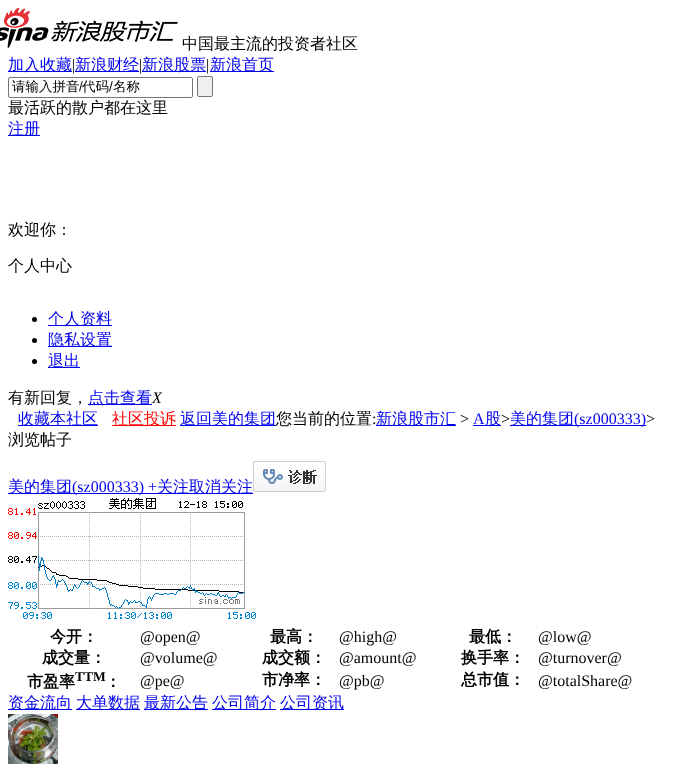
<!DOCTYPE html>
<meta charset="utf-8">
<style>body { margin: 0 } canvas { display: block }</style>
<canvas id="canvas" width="678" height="773"></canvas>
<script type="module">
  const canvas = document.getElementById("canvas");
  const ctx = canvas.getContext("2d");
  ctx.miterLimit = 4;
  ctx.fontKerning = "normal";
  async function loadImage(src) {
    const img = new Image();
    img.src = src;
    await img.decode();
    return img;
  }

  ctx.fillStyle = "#ffffff";
  ctx.fillRect(0, 0, 678, 773);
  ctx.drawImage(await loadImage("img1.png"), 0, 8, 178, 40);
  ctx.font = "500 16px WenQuanYi Zen Hei";
  ctx.fillStyle = "#000000";
  ctx.fillText("中国最主流的投资者社区", 182, 49);
  ctx.fillStyle = "#0000ee";
  ctx.fillRect(8, 71, 64, 1);
  ctx.fillText("加入收藏", 8, 70);
  ctx.font = "16px Liberation Serif";
  ctx.fillStyle = "#000000";
  ctx.fillText("|", 72, 70);
  ctx.fillStyle = "#0000ee";
  ctx.fillRect(75, 71, 64, 1);
  ctx.font = "500 16px WenQuanYi Zen Hei";
  ctx.fillText("新浪财经", 75, 70);
  ctx.font = "16px Liberation Serif";
  ctx.fillStyle = "#000000";
  ctx.fillText("|", 139, 70);
  ctx.fillStyle = "#0000ee";
  ctx.fillRect(142, 71, 64, 1);
  ctx.font = "500 16px WenQuanYi Zen Hei";
  ctx.fillText("新浪股票", 142, 70);
  ctx.font = "16px Liberation Serif";
  ctx.fillStyle = "#000000";
  ctx.fillText("|", 206, 70);
  ctx.fillStyle = "#0000ee";
  ctx.fillRect(210, 71, 64, 1);
  ctx.font = "500 16px WenQuanYi Zen Hei";
  ctx.fillText("新浪首页", 210, 70);
  ctx.beginPath();
  ctx.roundRect(8.5, 77.5, 184, 20, 1.5);
  ctx.strokeStyle = "#767676";
  ctx.stroke();
  ctx.font = "500 13.5px WenQuanYi Zen Hei";
  ctx.fillStyle = "#000000";
  ctx.fillText("请输入拼音", 12, 91);
  ctx.font = "13.5px Liberation Sans";
  ctx.fillText("/", 79, 91);
  ctx.font = "500 13.5px WenQuanYi Zen Hei";
  ctx.fillText("代码 名称", 82, 91);
  ctx.font = "13.5px Liberation Sans";
  ctx.fillText("/", 109, 91);
  ctx.fillStyle = "#efefef";
  ctx.beginPath();
  ctx.roundRect(197.5, 76.5, 15, 20, 1.5);
  ctx.fill();
  ctx.stroke();
  ctx.font = "500 16px WenQuanYi Zen Hei";
  ctx.fillStyle = "#000000";
  ctx.fillText("最活跃的散户都在这里", 8, 113);
  ctx.fillStyle = "#0000ee";
  ctx.fillRect(8, 135, 32, 1);
  ctx.fillText("注册", 8, 134);
  ctx.fillStyle = "#000000";
  ctx.fillText("欢迎你：", 8, 235);
  ctx.fillText("个人中心", 8, 271);
  ctx.beginPath();
  ctx.arc(34.5, 319.5, 2.5, 0, Math.PI * 2);
  ctx.fill();
  ctx.fillStyle = "#0000ee";
  ctx.fillRect(48, 325, 64, 1);
  ctx.fillText("个人资料", 48, 324);
  ctx.fillStyle = "#000000";
  ctx.beginPath();
  ctx.arc(34.5, 340.5, 2.5, 0, Math.PI * 2);
  ctx.fill();
  ctx.fillStyle = "#0000ee";
  ctx.fillRect(48, 346, 64, 1);
  ctx.fillText("隐私设置", 48, 345);
  ctx.fillStyle = "#000000";
  ctx.beginPath();
  ctx.arc(34.5, 361.5, 2.5, 0, Math.PI * 2);
  ctx.fill();
  ctx.fillStyle = "#0000ee";
  ctx.fillRect(48, 367, 32, 1);
  ctx.fillText("退出", 48, 366);
  ctx.fillStyle = "#000000";
  ctx.fillText("有新回复，", 8, 403);
  ctx.fillStyle = "#0000ee";
  ctx.fillRect(88, 404, 64, 1);
  ctx.fillText("点击查看", 88, 403);
  ctx.font = "italic 16px Liberation Serif";
  ctx.fillStyle = "#000000";
  ctx.fillText("X", 152, 403);
  ctx.fillStyle = "#0000ee";
  ctx.fillRect(18, 425, 80, 1);
  ctx.font = "500 16px WenQuanYi Zen Hei";
  ctx.fillText("收藏本社区", 18, 424);
  ctx.fillStyle = "#ff0000";
  ctx.fillRect(112, 425, 64, 1);
  ctx.fillText("社区投诉", 112, 424);
  ctx.fillStyle = "#0000ee";
  ctx.fillRect(180, 425, 96, 1);
  ctx.fillText("返回美的集团", 180, 424);
  ctx.fillStyle = "#000000";
  ctx.fillText("您当前的位置", 276, 424);
  ctx.font = "16px Liberation Serif";
  ctx.fillText(":", 372, 424);
  ctx.fillStyle = "#0000ee";
  ctx.fillRect(376, 425, 80, 1);
  ctx.font = "500 16px WenQuanYi Zen Hei";
  ctx.fillText("新浪股市汇", 376, 424);
  ctx.font = "16px Liberation Serif";
  ctx.fillStyle = "#000000";
  ctx.fillText(">", 460, 424);
  ctx.fillStyle = "#0000ee";
  ctx.fillText("A", 473, 424);
  ctx.fillRect(473, 425, 28, 1);
  ctx.font = "500 16px WenQuanYi Zen Hei";
  ctx.fillText("股", 485, 424);
  ctx.font = "16px Liberation Serif";
  ctx.fillStyle = "#000000";
  ctx.fillText(">", 501, 424);
  ctx.fillStyle = "#0000ee";
  ctx.fillRect(510, 425, 136, 1);
  ctx.font = "500 16px WenQuanYi Zen Hei";
  ctx.fillText("美的集团", 510, 424);
  ctx.font = "16px Liberation Serif";
  ctx.fillText("(sz000333)", 574, 424);
  ctx.fillStyle = "#000000";
  ctx.fillText(">", 646, 424);
  ctx.font = "500 16px WenQuanYi Zen Hei";
  ctx.fillText("浏览帖子", 8, 445);
  ctx.fillStyle = "#0000ee";
  ctx.fillRect(8, 493, 245, 1);
  ctx.fillText("美的集团", 8, 492);
  ctx.font = "16px Liberation Serif";
  ctx.fillText("(sz000333) +", 72, 492);
  ctx.font = "500 16px WenQuanYi Zen Hei";
  ctx.fillText("关注取消关注", 157, 492);
  ctx.drawImage(await loadImage("img2.png"), 253, 461, 73, 31);
  ctx.drawImage(await loadImage("img3.png"), 8, 498, 248, 121);
  ctx.font = "bold 16px WenQuanYi Zen Hei";
  ctx.fillStyle = "#000000";
  ctx.fillText("今开：", 50, 642);
  ctx.font = "16px Liberation Serif";
  ctx.fillText("@open@", 140, 642);
  ctx.font = "bold 16px WenQuanYi Zen Hei";
  ctx.fillText("最高：", 270, 642);
  ctx.font = "16px Liberation Serif";
  ctx.fillText("@high@", 339, 642);
  ctx.font = "bold 16px WenQuanYi Zen Hei";
  ctx.fillText("最低：", 469, 642);
  ctx.font = "16px Liberation Serif";
  ctx.fillText("@low@", 538, 642);
  ctx.font = "bold 16px WenQuanYi Zen Hei";
  ctx.fillText("成交量：", 42, 663);
  ctx.font = "16px Liberation Serif";
  ctx.fillText("@volume@", 140, 663);
  ctx.font = "bold 16px WenQuanYi Zen Hei";
  ctx.fillText("成交额：", 262, 663);
  ctx.font = "16px Liberation Serif";
  ctx.fillText("@amount@", 339, 663);
  ctx.font = "bold 16px WenQuanYi Zen Hei";
  ctx.fillText("换手率：", 461, 663);
  ctx.font = "16px Liberation Serif";
  ctx.fillText("@turnover@", 538, 663);
  ctx.font = "bold 16px WenQuanYi Zen Hei";
  ctx.fillText("市盈率", 27, 687);
  ctx.font = "bold 13.5px Liberation Serif";
  ctx.fillText("TTM", 75, 681);
  ctx.font = "bold 16px WenQuanYi Zen Hei";
  ctx.fillText("：", 105, 687);
  ctx.font = "16px Liberation Serif";
  ctx.fillText("@pe@", 140, 686);
  ctx.font = "bold 16px WenQuanYi Zen Hei";
  ctx.fillText("市净率：", 262, 685);
  ctx.font = "16px Liberation Serif";
  ctx.fillText("@pb@", 339, 686);
  ctx.font = "bold 16px WenQuanYi Zen Hei";
  ctx.fillText("总市值：", 461, 685);
  ctx.font = "16px Liberation Serif";
  ctx.fillText("@totalShare@", 538, 686);
  ctx.fillStyle = "#0000ee";
  ctx.fillRect(8, 709, 64, 1);
  ctx.font = "500 16px WenQuanYi Zen Hei";
  ctx.fillText("资金流向", 8, 708);
  ctx.fillRect(76, 709, 64, 1);
  ctx.fillText("大单数据", 76, 708);
  ctx.fillRect(144, 709, 64, 1);
  ctx.fillText("最新公告", 144, 708);
  ctx.fillRect(212, 709, 64, 1);
  ctx.fillText("公司简介", 212, 708);
  ctx.fillRect(280, 709, 64, 1);
  ctx.fillText("公司资讯", 280, 708);
  ctx.drawImage(await loadImage("img4.png"), 8, 714, 50, 50);
</script>
